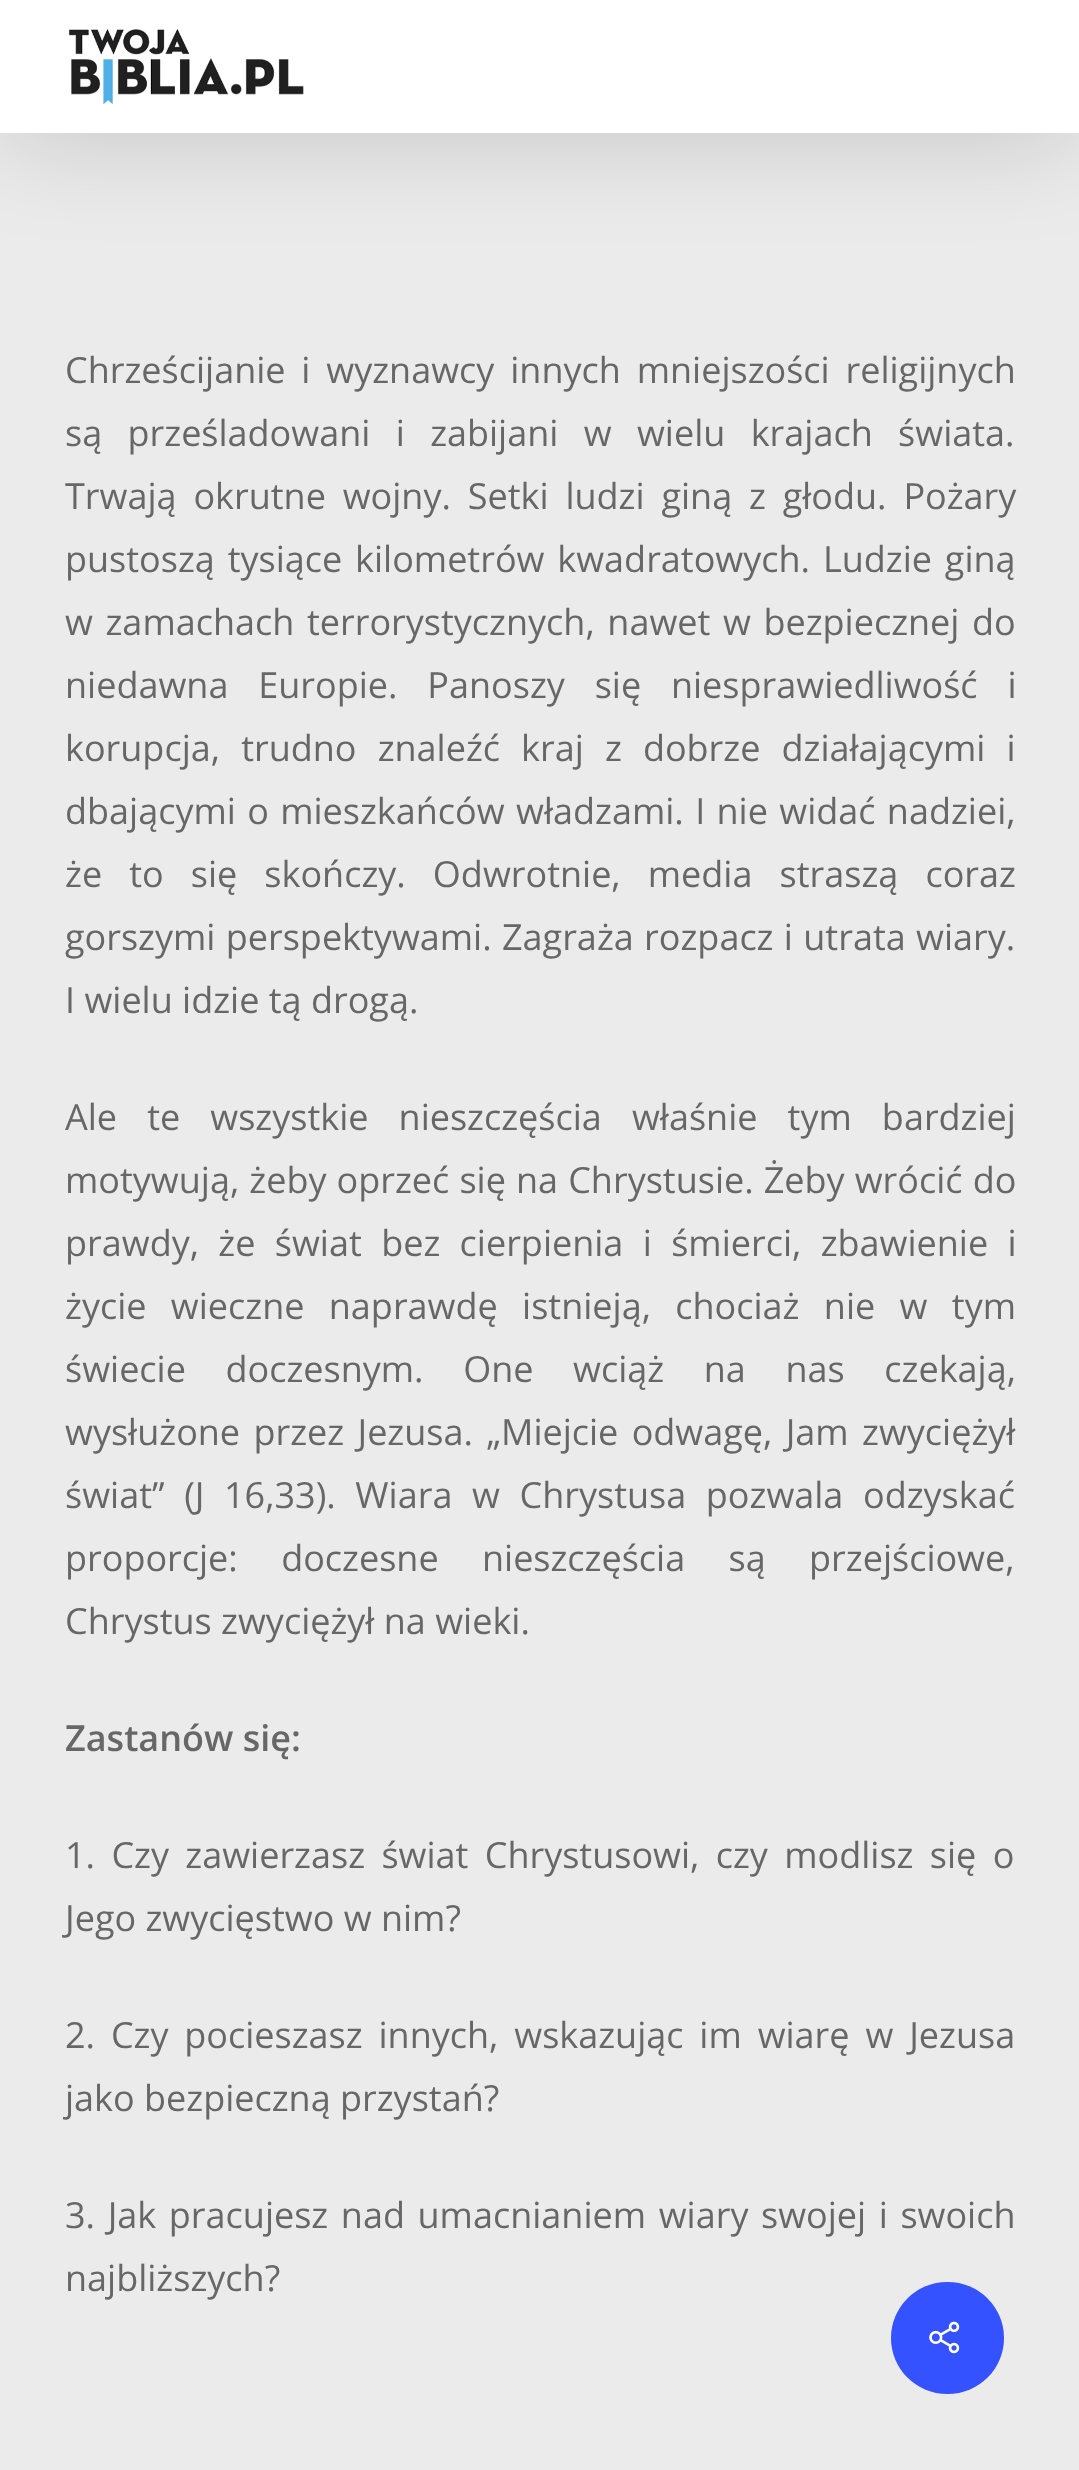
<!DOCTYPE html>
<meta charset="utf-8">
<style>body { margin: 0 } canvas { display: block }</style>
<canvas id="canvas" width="1079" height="2470"></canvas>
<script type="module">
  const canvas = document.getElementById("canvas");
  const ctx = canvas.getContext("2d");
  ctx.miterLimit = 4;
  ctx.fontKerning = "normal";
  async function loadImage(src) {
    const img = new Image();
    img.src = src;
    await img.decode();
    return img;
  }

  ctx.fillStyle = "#ebebeb";
  ctx.fillRect(0, 0, 1079, 2470);
  ctx.fillStyle = "rgba(0, 0, 0, 0.15)";
  ctx.filter = "blur(50.5px)";
  ctx.beginPath();
  ctx.rect(0, 7, 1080, 133);
  ctx.fill();
  ctx.filter = "none";
  ctx.fillStyle = "#ffffff";
  ctx.fillRect(0, 0, 1079, 133);
  ctx.drawImage(await loadImage("img1.png"), 69, 29, 235, 76);
  ctx.wordSpacing = "6.5px";
  ctx.font = "36px Open Sans";
  ctx.fillStyle = "#676767";
  ctx.fillText("Chrześcijanie i wyznawcy innych mniejszości religijnych", 65, 383);
  ctx.wordSpacing = "16px";
  ctx.fillText("są prześladowani i zabijani w wielu krajach świata.", 65, 446);
  ctx.wordSpacing = "7.5px";
  ctx.fillText("Trwają okrutne wojny. Setki ludzi giną z głodu. Pożary", 65, 509);
  ctx.wordSpacing = "3.5px";
  ctx.fillText("pustoszą tysiące kilometrów kwadratowych. Ludzie giną", 65, 572);
  ctx.wordSpacing = "3.25px";
  ctx.fillText("w zamachach terrorystycznych, nawet w bezpiecznej do", 65, 635);
  ctx.wordSpacing = "20.5px";
  ctx.fillText("niedawna Europie. Panoszy się niesprawiedliwość i", 65, 698);
  ctx.wordSpacing = "11.75px";
  ctx.fillText("korupcja, trudno znaleźć kraj z dobrze działającymi i", 65, 761);
  ctx.wordSpacing = "2px";
  ctx.fillText("dbającymi o mieszkańców władzami. I nie widać nadziei,", 65, 824);
  ctx.wordSpacing = "17.75px";
  ctx.fillText("że to się skończy. Odwrotnie, media straszą coraz", 65, 887);
  ctx.wordSpacing = "1px";
  ctx.fillText("gorszymi perspektywami. Zagraża rozpacz i utrata wiary.", 65, 950);
  ctx.wordSpacing = "0px";
  ctx.fillText("I wielu idzie tą drogą.", 65, 1013);
  ctx.wordSpacing = "20.75px";
  ctx.fillText("Ale te wszystkie nieszczęścia właśnie tym bardziej", 65, 1130);
  ctx.wordSpacing = "0.75px";
  ctx.fillText("motywują, żeby oprzeć się na Chrystusie. Żeby wrócić do", 65, 1193);
  ctx.wordSpacing = "10px";
  ctx.fillText("prawdy, że świat bez cierpienia i śmierci, zbawienie i", 65, 1256);
  ctx.wordSpacing = "15px";
  ctx.fillText("życie wieczne naprawdę istnieją, chociaż nie w tym", 65, 1319);
  ctx.wordSpacing = "30.25px";
  ctx.fillText("świecie doczesnym. One wciąż na nas czekają,", 65, 1382);
  ctx.wordSpacing = "4px";
  ctx.fillText("wysłużone przez Jezusa. „Miejcie odwagę, Jam zwyciężył", 65, 1445);
  ctx.wordSpacing = "10.25px";
  ctx.fillText("świat” (J 16,33). Wiara w Chrystusa pozwala odzyskać", 65, 1508);
  ctx.wordSpacing = "34px";
  ctx.fillText("proporcje: doczesne nieszczęścia są przejściowe,", 65, 1571);
  ctx.wordSpacing = "0px";
  ctx.fillText("Chrystus zwyciężył na wieki.", 65, 1634);
  ctx.font = "600 36px Open Sans";
  ctx.fillText("Zastanów się:", 65, 1751);
  ctx.wordSpacing = "7px";
  ctx.font = "36px Open Sans";
  ctx.fillText("1. Czy zawierzasz świat Chrystusowi, czy modlisz się o", 65, 1868);
  ctx.wordSpacing = "0px";
  ctx.fillText("Jego zwycięstwo w nim?", 65, 1931);
  ctx.wordSpacing = "6.5px";
  ctx.fillText("2. Czy pocieszasz innych, wskazując im wiarę w Jezusa", 65, 2048);
  ctx.wordSpacing = "0px";
  ctx.fillText("jako bezpieczną przystań?", 65, 2111);
  ctx.wordSpacing = "3.25px";
  ctx.fillText("3. Jak pracujesz nad umacnianiem wiary swojej i swoich", 65, 2228);
  ctx.wordSpacing = "0px";
  ctx.fillText("najbliższych?", 65, 2291);
  ctx.fillStyle = "#3452ff";
  ctx.beginPath();
  ctx.roundRect(891, 2282, 113, 112, 56);
  ctx.fill();
  ctx.drawImage(await loadImage("img2.png"), 929, 2321, 31, 33);
</script>
